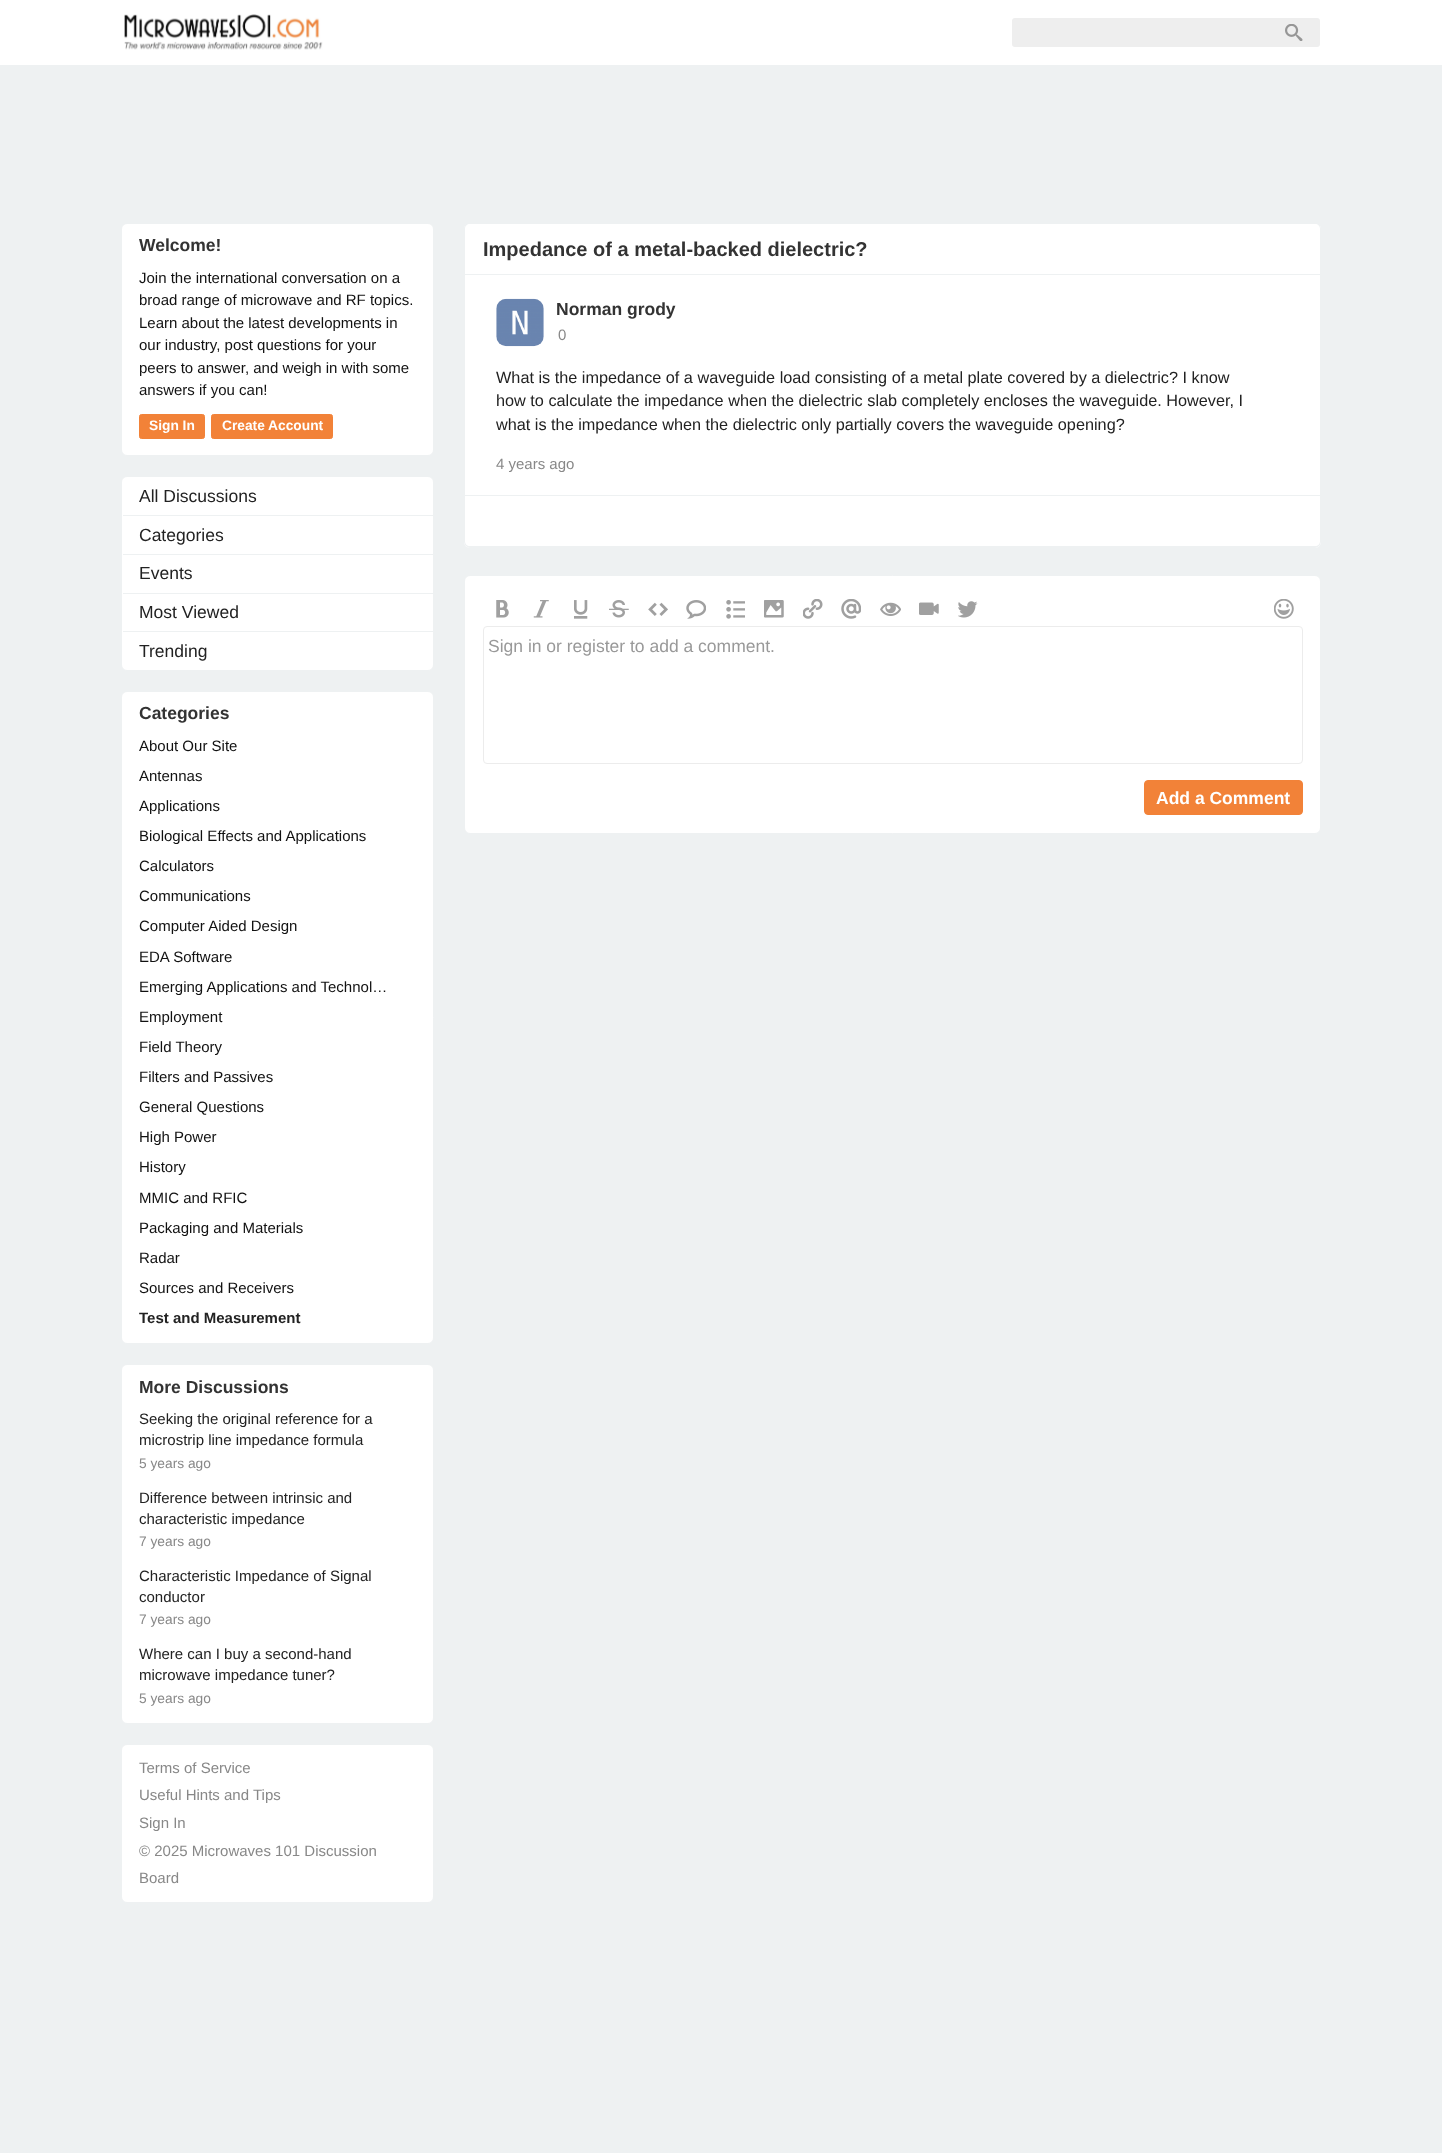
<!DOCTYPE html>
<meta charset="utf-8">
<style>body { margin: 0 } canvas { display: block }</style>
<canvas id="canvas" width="1442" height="2153"></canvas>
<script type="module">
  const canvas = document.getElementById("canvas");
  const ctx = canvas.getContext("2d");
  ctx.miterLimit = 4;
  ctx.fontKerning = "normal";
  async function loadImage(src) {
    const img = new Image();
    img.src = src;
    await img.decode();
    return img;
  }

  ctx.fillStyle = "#eef1f2";
  ctx.fillRect(0, 0, 1442, 2153);
  ctx.fillStyle = "#ffffff";
  ctx.fillRect(0, 0, 1442, 65);
  ctx.drawImage(await loadImage("img1.png"), 124, 14, 199, 36);
  ctx.fillStyle = "#eeeeee";
  ctx.beginPath();
  ctx.roundRect(1010.5, 16.5, 311, 32, 4.5);
  ctx.fill();
  ctx.strokeStyle = "#ffffff";
  ctx.lineWidth = 3;
  ctx.stroke();
  ctx.drawImage(await loadImage("img2.png"), 1285, 24, 18, 17);
  ctx.fillStyle = "#ffffff";
  ctx.beginPath();
  ctx.roundRect(121.5, 223.5, 312, 232, 5.5);
  ctx.fill();
  ctx.strokeStyle = "#eef1f2";
  ctx.lineWidth = 1;
  ctx.stroke();
  ctx.font = "bold 17.5px Liberation Sans";
  ctx.fillStyle = "#333333";
  ctx.fillText("Welcome!", 139, 251);
  ctx.font = "15px Liberation Sans";
  ctx.fillStyle = "#111111";
  ctx.fillText("Join the international conversation on a", 139, 283);
  ctx.fillText("broad range of microwave and RF topics.", 139, 305);
  ctx.fillText("Learn about the latest developments in", 139, 328);
  ctx.fillText("our industry, post questions for your", 139, 350);
  ctx.fillText("peers to answer, and weigh in with some", 139, 373);
  ctx.fillText("answers if you can!", 139, 395);
  ctx.fillStyle = "#f28238";
  ctx.beginPath();
  ctx.roundRect(139.5, 414.5, 65, 24, 2);
  ctx.fill();
  ctx.strokeStyle = "#f28238";
  ctx.stroke();
  ctx.font = "bold 13.75px Liberation Sans";
  ctx.fillStyle = "#ffffff";
  ctx.fillText("Sign In", 149, 430);
  ctx.fillStyle = "#f28238";
  ctx.beginPath();
  ctx.roundRect(211.5, 414.5, 121, 24, 2);
  ctx.fill();
  ctx.stroke();
  ctx.fillStyle = "#ffffff";
  ctx.fillText("Create Account", 222, 430);
  ctx.beginPath();
  ctx.roundRect(121.5, 476.5, 312, 194, 5.5);
  ctx.fill();
  ctx.strokeStyle = "#eef1f2";
  ctx.stroke();
  ctx.fillStyle = "#eef1f2";
  ctx.fillRect(123, 515, 310, 1);
  ctx.font = "17.5px Liberation Sans";
  ctx.fillStyle = "#222222";
  ctx.fillText("All Discussions", 139, 502);
  ctx.fillStyle = "#eef1f2";
  ctx.fillRect(123, 554, 310, 1);
  ctx.fillStyle = "#222222";
  ctx.fillText("Categories", 139, 541);
  ctx.fillStyle = "#eef1f2";
  ctx.fillRect(123, 593, 310, 1);
  ctx.fillStyle = "#222222";
  ctx.fillText("Events", 139, 579);
  ctx.fillStyle = "#eef1f2";
  ctx.fillRect(123, 631, 310, 1);
  ctx.fillStyle = "#222222";
  ctx.fillText("Most Viewed", 139, 618);
  ctx.fillText("Trending", 139, 657);
  ctx.fillStyle = "#ffffff";
  ctx.beginPath();
  ctx.roundRect(121.5, 691.5, 312, 652, 5.5);
  ctx.fill();
  ctx.stroke();
  ctx.font = "bold 17.5px Liberation Sans";
  ctx.fillStyle = "#333333";
  ctx.fillText("Categories", 139, 719);
  ctx.font = "15px Liberation Sans";
  ctx.fillStyle = "#111111";
  ctx.fillText("About Our Site", 139, 751);
  ctx.fillText("Antennas", 139, 781);
  ctx.fillText("Applications", 139, 811);
  ctx.fillText("Biological Effects and Applications", 139, 841);
  ctx.fillText("Calculators", 139, 871);
  ctx.fillText("Communications", 139, 901);
  ctx.fillText("Computer Aided Design", 139, 931);
  ctx.fillText("EDA Software", 139, 962);
  ctx.fillText("Emerging Applications and Technol…", 139, 992);
  ctx.fillText("Employment", 139, 1022);
  ctx.fillText("Field Theory", 139, 1052);
  ctx.fillText("Filters and Passives", 139, 1082);
  ctx.fillText("General Questions", 139, 1112);
  ctx.fillText("High Power", 139, 1142);
  ctx.fillText("History", 139, 1172);
  ctx.fillText("MMIC and RFIC", 139, 1203);
  ctx.fillText("Packaging and Materials", 139, 1233);
  ctx.fillText("Radar", 139, 1263);
  ctx.fillText("Sources and Receivers", 139, 1293);
  ctx.font = "bold 15px Liberation Sans";
  ctx.fillStyle = "#222222";
  ctx.fillText("Test and Measurement", 139, 1323);
  ctx.fillStyle = "#ffffff";
  ctx.beginPath();
  ctx.roundRect(121.5, 1364.5, 312, 359, 5.5);
  ctx.fill();
  ctx.stroke();
  ctx.font = "bold 17.5px Liberation Sans";
  ctx.fillStyle = "#333333";
  ctx.fillText("More Discussions", 139, 1393);
  ctx.font = "15px Liberation Sans";
  ctx.fillStyle = "#222222";
  ctx.fillText("Seeking the original reference for a", 139, 1424);
  ctx.fillText("microstrip line impedance formula", 139, 1445);
  ctx.font = "13.75px Liberation Sans";
  ctx.fillStyle = "#888888";
  ctx.fillText("5 years ago", 139, 1468);
  ctx.font = "15px Liberation Sans";
  ctx.fillStyle = "#222222";
  ctx.fillText("Difference between intrinsic and", 139, 1503);
  ctx.fillText("characteristic impedance", 139, 1524);
  ctx.font = "13.75px Liberation Sans";
  ctx.fillStyle = "#888888";
  ctx.fillText("7 years ago", 139, 1546);
  ctx.font = "15px Liberation Sans";
  ctx.fillStyle = "#222222";
  ctx.fillText("Characteristic Impedance of Signal", 139, 1581);
  ctx.fillText("conductor", 139, 1602);
  ctx.font = "13.75px Liberation Sans";
  ctx.fillStyle = "#888888";
  ctx.fillText("7 years ago", 139, 1624);
  ctx.font = "15px Liberation Sans";
  ctx.fillStyle = "#222222";
  ctx.fillText("Where can I buy a second-hand", 139, 1659);
  ctx.fillText("microwave impedance tuner?", 139, 1680);
  ctx.font = "13.75px Liberation Sans";
  ctx.fillStyle = "#888888";
  ctx.fillText("5 years ago", 139, 1703);
  ctx.fillStyle = "#ffffff";
  ctx.beginPath();
  ctx.roundRect(121.5, 1744.5, 312, 158, 5.5);
  ctx.fill();
  ctx.stroke();
  ctx.font = "15px Liberation Sans";
  ctx.fillStyle = "#888888";
  ctx.fillText("Terms of Service", 139, 1773);
  ctx.fillText("Useful Hints and Tips", 139, 1800);
  ctx.fillText("Sign In", 139, 1828);
  ctx.fillText("© 2025 Microwaves 101 Discussion", 139, 1856);
  ctx.fillText("Board", 139, 1883);
  ctx.fillStyle = "#ffffff";
  ctx.beginPath();
  ctx.roundRect(464, 223, 857, 51, [6, 6, 0, 0]);
  ctx.fill();
  ctx.fillStyle = "#eef1f2";
  ctx.beginPath();
  ctx.moveTo(470, 222);
  ctx.lineTo(1315, 222);
  ctx.bezierCurveTo(1318, 222, 1321, 225, 1321, 229);
  ctx.lineTo(1321, 274);
  ctx.lineTo(464, 274);
  ctx.lineTo(464, 229);
  ctx.bezierCurveTo(464, 225, 467, 222, 470, 222);
  ctx.closePath();
  ctx.moveTo(470, 224);
  ctx.lineTo(1315, 224);
  ctx.bezierCurveTo(1318, 224, 1320, 226, 1320, 229);
  ctx.lineTo(1320, 274);
  ctx.lineTo(465, 274);
  ctx.lineTo(465, 229);
  ctx.bezierCurveTo(465, 226, 467, 224, 470, 224);
  ctx.closePath();
  ctx.fill("evenodd");
  ctx.font = "bold 20px Liberation Sans";
  ctx.fillStyle = "#333333";
  ctx.fillText("Impedance of a metal-backed dielectric?", 483, 256);
  ctx.fillStyle = "#ffffff";
  ctx.fillRect(465, 275, 855, 220);
  ctx.drawImage(await loadImage("img3.png"), 496, 298, 48, 49);
  ctx.font = "bold 17.5px Liberation Sans";
  ctx.fillStyle = "#333333";
  ctx.fillText("Norman grody", 556, 315);
  ctx.font = "15px Liberation Sans";
  ctx.fillStyle = "#888888";
  ctx.fillText("0", 558, 340);
  ctx.font = "16.25px Liberation Sans";
  ctx.fillStyle = "#222222";
  ctx.fillText("What is the impedance of a waveguide load consisting of a metal plate covered by a dielectric? I know", 496, 383);
  ctx.fillText("how to calculate the impedance when the dielectric slab completely encloses the waveguide. However, I", 496, 406);
  ctx.fillText("what is the impedance when the dielectric only partially covers the waveguide opening?", 496, 430);
  ctx.font = "15px Liberation Sans";
  ctx.fillStyle = "#888888";
  ctx.fillText("4 years ago", 496, 469);
  ctx.fillStyle = "#ffffff";
  ctx.beginPath();
  ctx.roundRect(464, 496, 857, 52, [0, 0, 6, 6]);
  ctx.fill();
  ctx.fillStyle = "#eef1f2";
  ctx.beginPath();
  ctx.moveTo(464, 496);
  ctx.lineTo(1321, 496);
  ctx.lineTo(1321, 541);
  ctx.bezierCurveTo(1321, 545, 1318, 548, 1315, 548);
  ctx.lineTo(470, 548);
  ctx.bezierCurveTo(467, 548, 464, 545, 464, 541);
  ctx.closePath();
  ctx.moveTo(465, 496);
  ctx.lineTo(1320, 496);
  ctx.lineTo(1320, 541);
  ctx.bezierCurveTo(1320, 544, 1318, 546, 1315, 546);
  ctx.lineTo(470, 546);
  ctx.bezierCurveTo(467, 546, 465, 544, 465, 541);
  ctx.closePath();
  ctx.fill("evenodd");
  ctx.fillStyle = "#ffffff";
  ctx.beginPath();
  ctx.roundRect(464.5, 575.5, 856, 258, 5.5);
  ctx.fill();
  ctx.stroke();
  ctx.drawImage(await loadImage("img4.png"), 496, 600, 13, 18);
  ctx.drawImage(await loadImage("img5.png"), 533, 600, 16, 18);
  ctx.drawImage(await loadImage("img6.png"), 574, 600, 14, 19);
  ctx.drawImage(await loadImage("img7.png"), 609, 600, 20, 18);
  ctx.drawImage(await loadImage("img8.png"), 648, 602, 20, 14);
  ctx.drawImage(await loadImage("img9.png"), 686, 600, 20, 19);
  ctx.drawImage(await loadImage("img10.png"), 726, 600, 19, 19);
  ctx.drawImage(await loadImage("img11.png"), 764, 600, 20, 18);
  ctx.drawImage(await loadImage("img12.png"), 803, 599, 20, 20);
  ctx.drawImage(await loadImage("img13.png"), 841, 599, 20, 20);
  ctx.drawImage(await loadImage("img14.png"), 880, 602, 21, 14);
  ctx.drawImage(await loadImage("img15.png"), 919, 602, 20, 13);
  ctx.drawImage(await loadImage("img16.png"), 958, 601, 20, 17);
  ctx.drawImage(await loadImage("img17.png"), 1274, 599, 20, 20);
  ctx.beginPath();
  ctx.roundRect(483.5, 626.5, 819, 137, 3.5);
  ctx.strokeStyle = "#ececec";
  ctx.stroke();
  ctx.font = "17.5px Liberation Sans";
  ctx.fillStyle = "#999999";
  ctx.fillText("Sign in or register to add a comment.", 488, 652);
  ctx.fillStyle = "#f28238";
  ctx.beginPath();
  ctx.roundRect(1144.5, 780.5, 158, 34, 3.5);
  ctx.fill();
  ctx.strokeStyle = "#f28238";
  ctx.stroke();
  ctx.font = "bold 17.5px Liberation Sans";
  ctx.fillStyle = "#ffffff";
  ctx.fillText("Add a Comment", 1156, 804);
</script>
